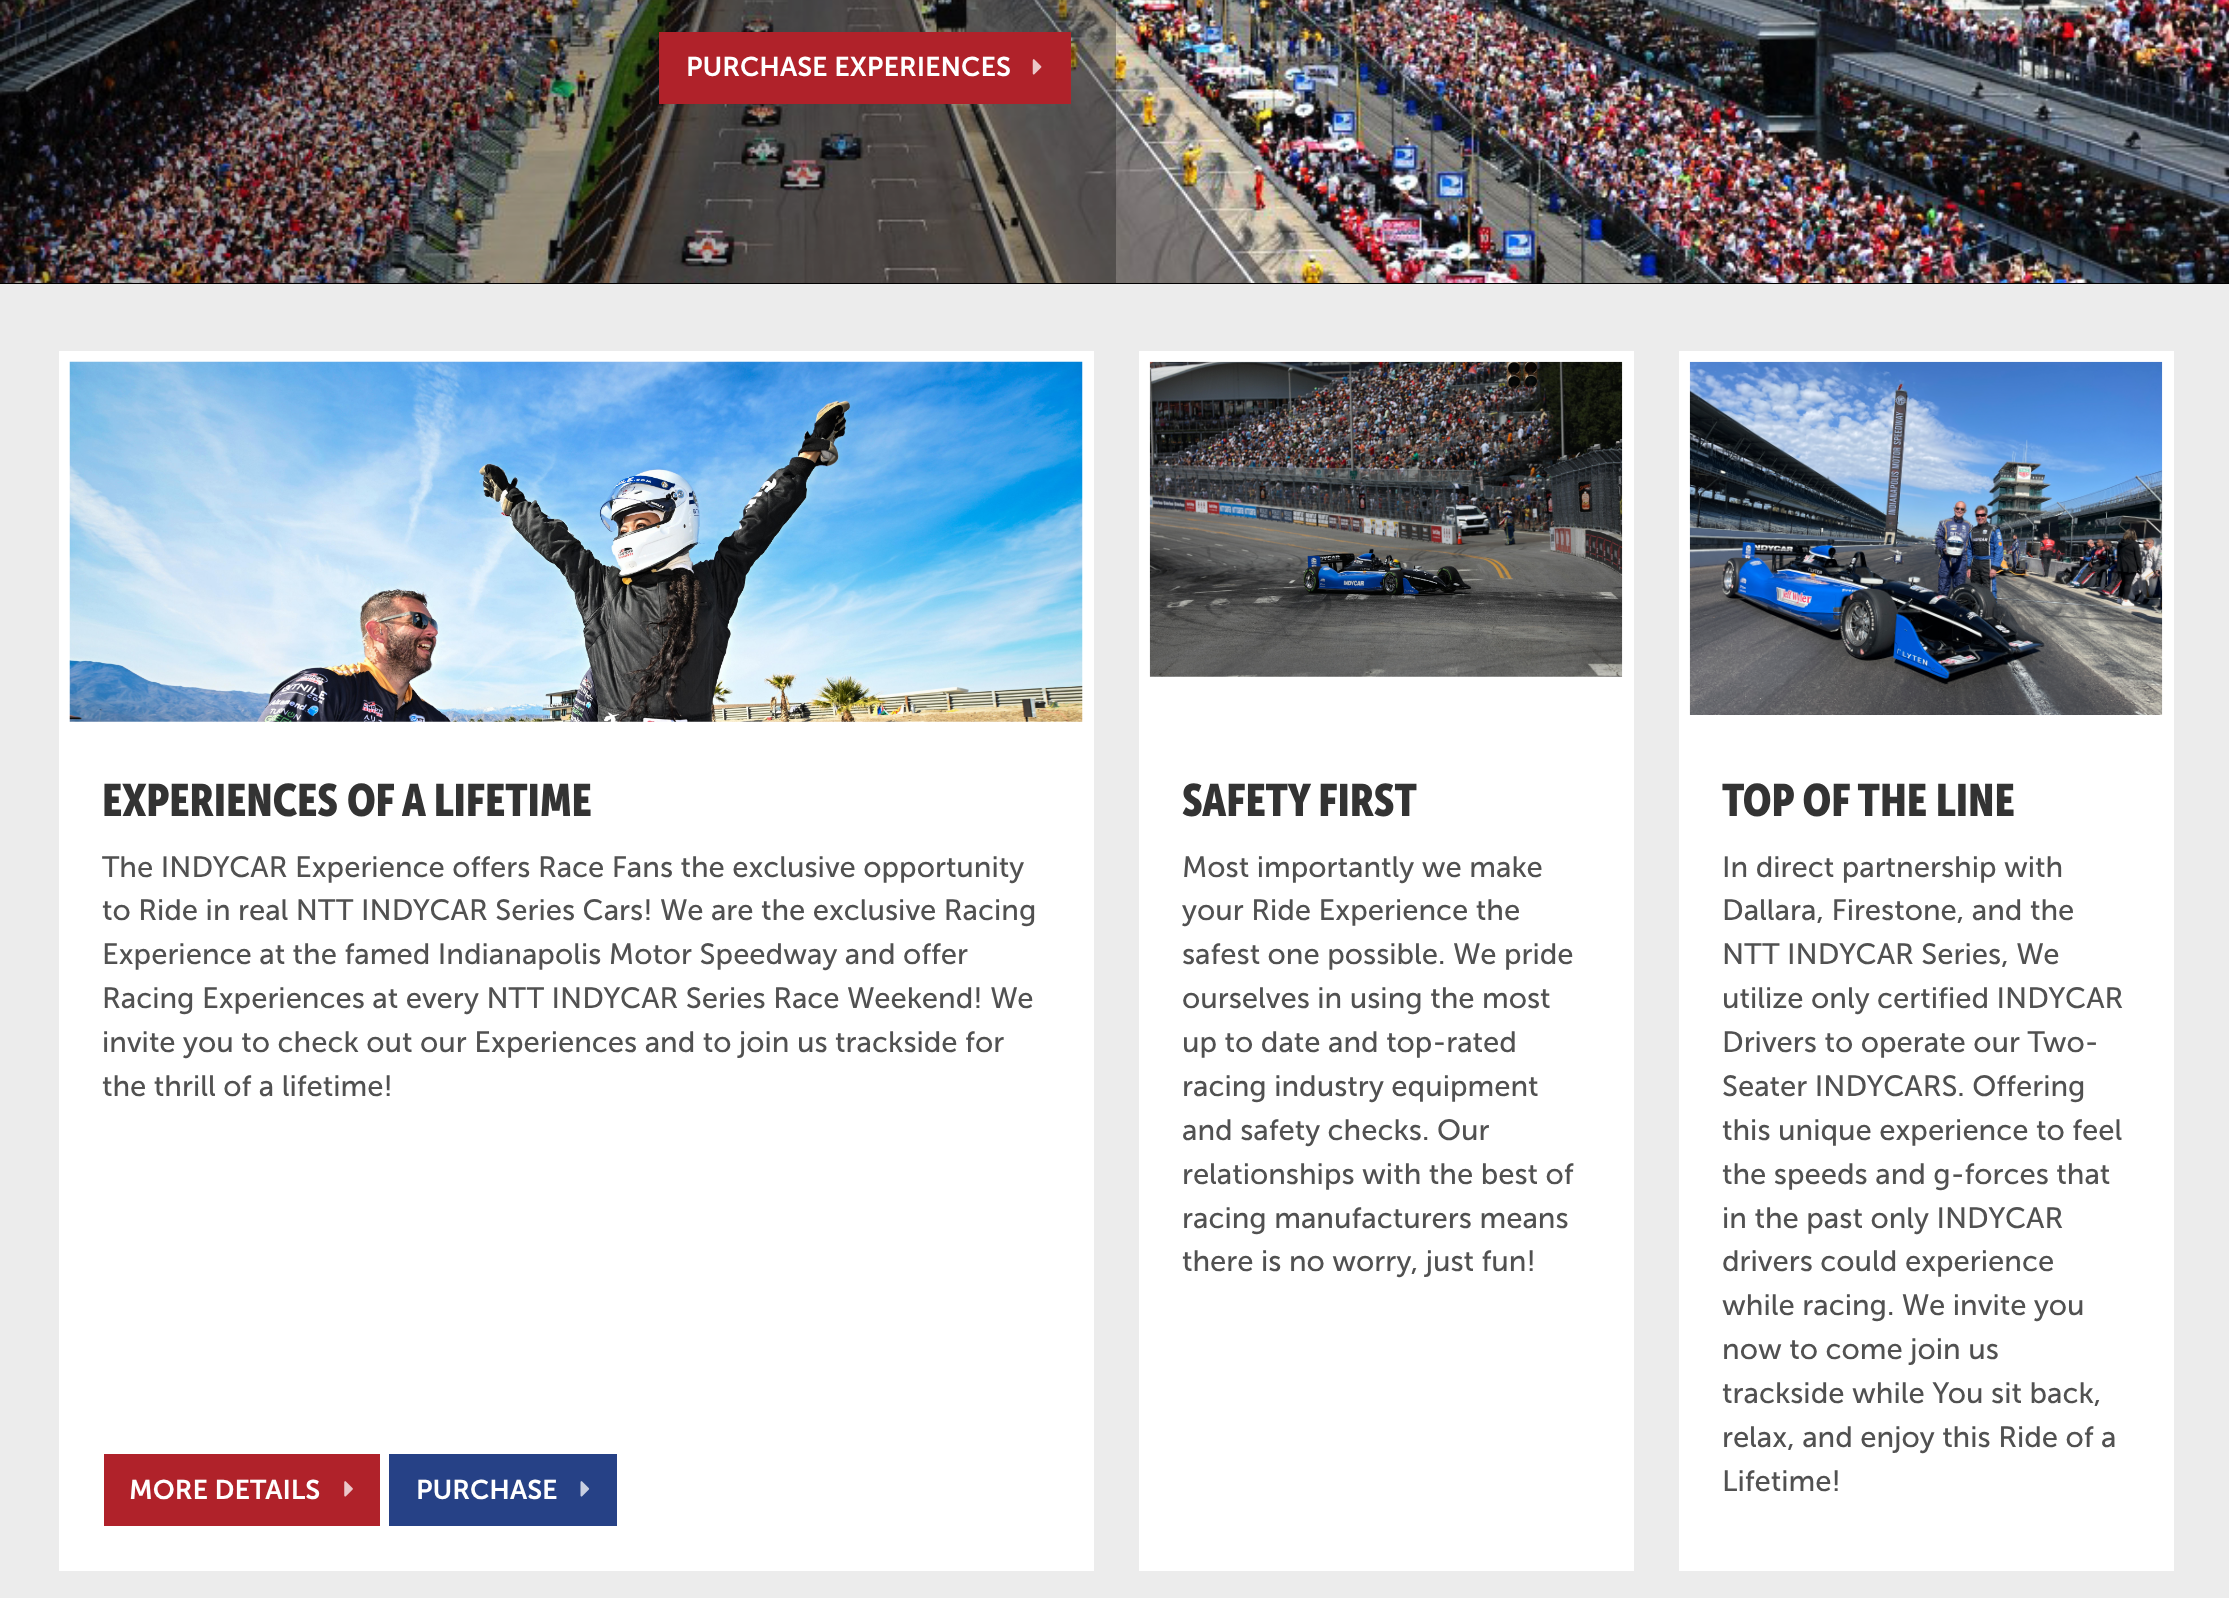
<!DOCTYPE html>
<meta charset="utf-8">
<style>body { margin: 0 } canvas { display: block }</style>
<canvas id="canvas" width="2229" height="1598"></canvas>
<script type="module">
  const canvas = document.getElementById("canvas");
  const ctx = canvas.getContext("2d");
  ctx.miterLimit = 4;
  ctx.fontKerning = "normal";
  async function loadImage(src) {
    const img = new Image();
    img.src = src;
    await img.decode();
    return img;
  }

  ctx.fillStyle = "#ececec";
  ctx.fillRect(0, 0, 2229, 1598);
  ctx.fillStyle = "#000000";
  ctx.fillRect(0, 283, 2229, 1);
  ctx.drawImage(await loadImage("img1.png"), 0, 0, 2229, 283);
  ctx.fillStyle = "rgba(0, 0, 0, 0.3)";
  ctx.fillRect(0, 0, 1116, 283);
  ctx.fillStyle = "#b0222a";
  ctx.fillRect(659, 32, 412, 72);
  ctx.font = "600 27px 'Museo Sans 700'";
  ctx.fillStyle = "#ffffff";
  ctx.fillText("PURCHASE EXPERIENCES", 686, 76);
  ctx.drawImage(await loadImage("img2.png"), 1032, 59, 10, 16);
  ctx.fillRect(59, 351, 1035, 1220);
  ctx.drawImage(await loadImage("img3.png"), 69, 361, 1014, 361);
  ctx.font = "bold 45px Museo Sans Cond";
  ctx.fillStyle = "#333333";
  ctx.fillText("EXPERIENCES OF A LIFETIME", 102, 816);
  ctx.font = "29.25px 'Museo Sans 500'";
  ctx.fillStyle = "#515151";
  ctx.fillText("The INDYCAR Experience offers Race Fans the exclusive opportunity", 102, 877);
  ctx.fillText("to Ride in real NTT INDYCAR Series Cars! We are the exclusive Racing", 102, 920);
  ctx.fillText("Experience at the famed Indianapolis Motor Speedway and offer", 102, 964);
  ctx.fillText("Racing Experiences at every NTT INDYCAR Series Race Weekend! We", 102, 1008);
  ctx.fillText("invite you to check out our Experiences and to join us trackside for", 102, 1052);
  ctx.fillText("the thrill of a lifetime!", 102, 1096);
  ctx.fillStyle = "#b0222a";
  ctx.fillRect(104, 1454, 276, 72);
  ctx.font = "600 27px 'Museo Sans 700'";
  ctx.fillStyle = "#ffffff";
  ctx.fillText("MORE DETAILS", 129, 1499);
  ctx.drawImage(await loadImage("img4.png"), 344, 1481, 9, 16);
  ctx.fillStyle = "#264186";
  ctx.fillRect(389, 1454, 228, 72);
  ctx.fillStyle = "#ffffff";
  ctx.fillText("PURCHASE", 416, 1499);
  ctx.drawImage(await loadImage("img5.png"), 580, 1481, 10, 16);
  ctx.fillRect(1139, 351, 495, 1220);
  ctx.drawImage(await loadImage("img6.png"), 1149, 361, 474, 316);
  ctx.font = "bold 45px Museo Sans Cond";
  ctx.fillStyle = "#333333";
  ctx.fillText("SAFETY FIRST", 1182, 816);
  ctx.font = "29.25px 'Museo Sans 500'";
  ctx.fillStyle = "#515151";
  ctx.fillText("Most importantly we make", 1182, 877);
  ctx.fillText("your Ride Experience the", 1182, 920);
  ctx.fillText("safest one possible. We pride", 1182, 964);
  ctx.fillText("ourselves in using the most", 1182, 1008);
  ctx.fillText("up to date and top-rated", 1182, 1052);
  ctx.fillText("racing industry equipment", 1182, 1096);
  ctx.fillText("and safety checks. Our", 1182, 1140);
  ctx.fillText("relationships with the best of", 1182, 1184);
  ctx.fillText("racing manufacturers means", 1182, 1228);
  ctx.fillText("there is no worry, just fun!", 1182, 1271);
  ctx.fillStyle = "#ffffff";
  ctx.fillRect(1679, 351, 495, 1220);
  ctx.drawImage(await loadImage("img7.png"), 1689, 361, 474, 354);
  ctx.font = "bold 45px Museo Sans Cond";
  ctx.fillStyle = "#333333";
  ctx.fillText("TOP OF THE LINE", 1722, 816);
  ctx.font = "29.25px 'Museo Sans 500'";
  ctx.fillStyle = "#515151";
  ctx.fillText("In direct partnership with", 1722, 877);
  ctx.fillText("Dallara, Firestone, and the", 1722, 920);
  ctx.fillText("NTT INDYCAR Series, We", 1722, 964);
  ctx.fillText("utilize only certified INDYCAR", 1722, 1008);
  ctx.fillText("Drivers to operate our Two-", 1722, 1052);
  ctx.fillText("Seater INDYCARS. Offering", 1722, 1096);
  ctx.fillText("this unique experience to feel", 1722, 1140);
  ctx.fillText("the speeds and g-forces that", 1722, 1184);
  ctx.fillText("in the past only INDYCAR", 1722, 1228);
  ctx.fillText("drivers could experience", 1722, 1271);
  ctx.fillText("while racing. We invite you", 1722, 1315);
  ctx.fillText("now to come join us", 1722, 1359);
  ctx.fillText("trackside while You sit back,", 1722, 1403);
  ctx.fillText("relax, and enjoy this Ride of a", 1722, 1447);
  ctx.fillText("Lifetime!", 1722, 1491);
</script>
